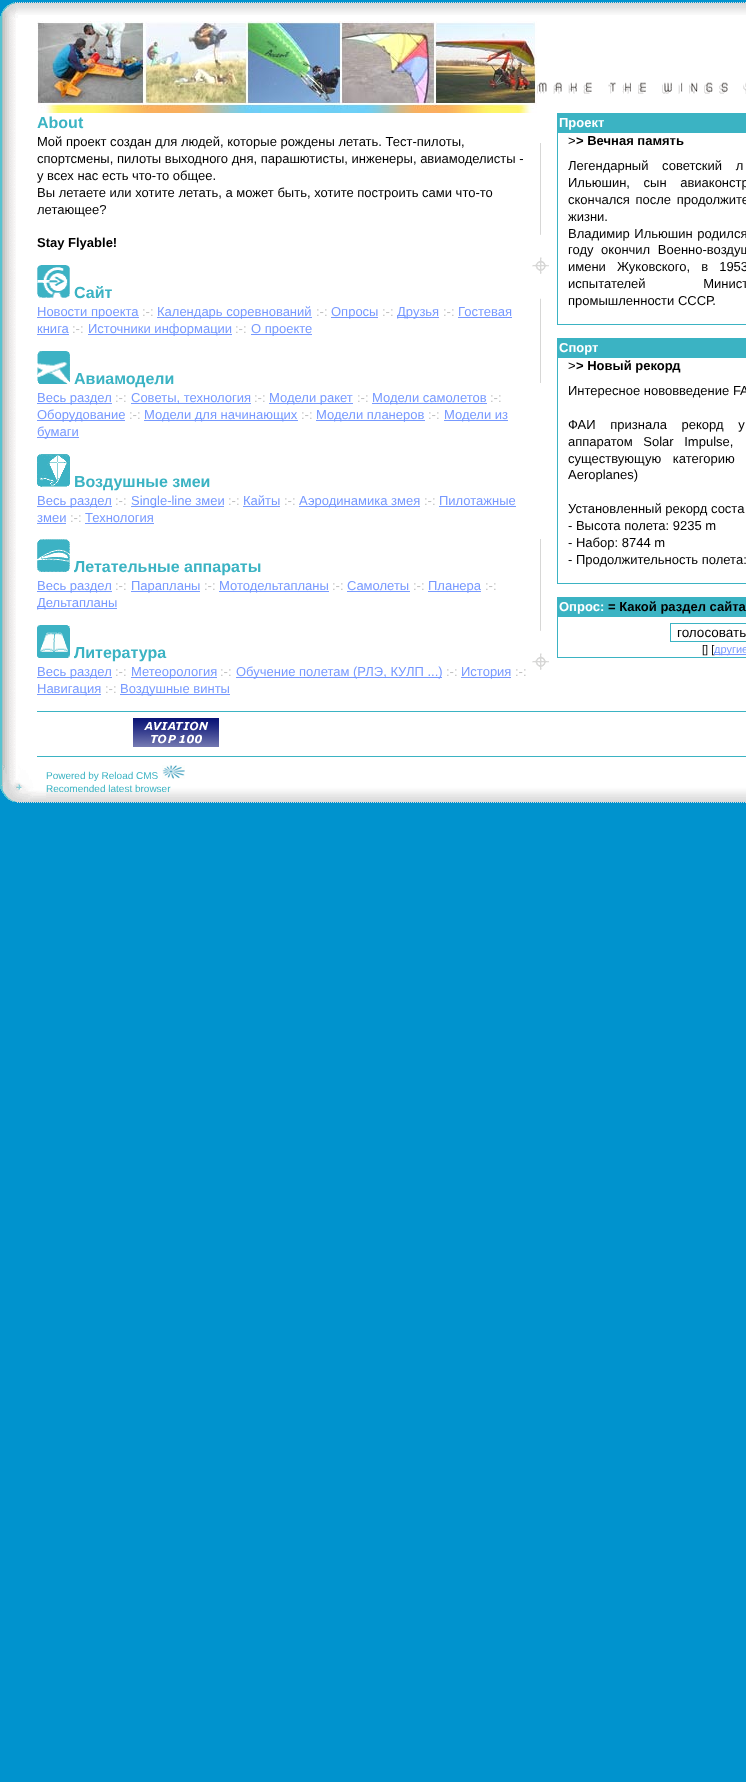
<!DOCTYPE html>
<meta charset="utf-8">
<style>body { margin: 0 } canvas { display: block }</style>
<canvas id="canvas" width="746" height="1782"></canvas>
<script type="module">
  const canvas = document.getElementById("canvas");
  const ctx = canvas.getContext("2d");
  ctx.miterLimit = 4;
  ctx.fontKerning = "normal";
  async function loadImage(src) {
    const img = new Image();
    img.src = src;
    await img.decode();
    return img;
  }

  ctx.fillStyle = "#0093ce";
  ctx.fillRect(0, 0, 746, 1782);
  ctx.fillStyle = "#ffffff";
  ctx.fillRect(18, 15, 728, 750);
  ctx.drawImage(await loadImage("img1.png"), 0, 0, 18, 18);
  ctx.drawImage(await loadImage("img2.png"), 18, 0, 728, 15);
  ctx.drawImage(await loadImage("img3.png"), 0, 18, 18, 747);
  ctx.drawImage(await loadImage("img4.png"), 37, 21, 500, 92);
  ctx.drawImage(await loadImage("img5.png"), 537, 82, 209, 12);
  ctx.font = "bold 16px Liberation Sans";
  ctx.fillStyle = "#3bb3c3";
  ctx.fillText("About", 37, 128);
  ctx.font = "13px Liberation Sans";
  ctx.fillStyle = "#000000";
  ctx.fillText("Mой проект создан для людей, которые рождены летать. Тест-пилоты,", 37, 146);
  ctx.fillText("спортсмены, пилоты выходного дня, парашютисты, инженеры, авиамоделисты -", 37, 163);
  ctx.fillText("у всех нас есть что-то общее.", 37, 180);
  ctx.fillText("Вы летаете или хотите летать, а может быть, хотите построить сами что-то", 37, 197);
  ctx.fillText("летающее?", 37, 214);
  ctx.font = "bold 13px Liberation Sans";
  ctx.fillText("Stay Flyable!", 37, 247);
  ctx.drawImage(await loadImage("img6.png"), 37, 265, 33, 33);
  ctx.font = "bold 16px Liberation Sans";
  ctx.fillStyle = "#3bb3c3";
  ctx.fillText("Сайт", 74, 298);
  ctx.fillStyle = "#7799ff";
  ctx.fillRect(37, 317, 102, 1);
  ctx.font = "13px Liberation Sans";
  ctx.fillText("Новости проекта", 37, 316);
  ctx.fillStyle = "#c0c0c0";
  ctx.fillText(":-:", 142, 316);
  ctx.fillStyle = "#7799ff";
  ctx.fillRect(157, 317, 155, 1);
  ctx.fillText("Календарь соревнований", 157, 316);
  ctx.fillStyle = "#c0c0c0";
  ctx.fillText(":-:", 316, 316);
  ctx.fillStyle = "#7799ff";
  ctx.fillRect(331, 317, 47, 1);
  ctx.fillText("Опросы", 331, 316);
  ctx.fillStyle = "#c0c0c0";
  ctx.fillText(":-:", 382, 316);
  ctx.fillStyle = "#7799ff";
  ctx.fillRect(397, 317, 42, 1);
  ctx.fillText("Друзья", 397, 316);
  ctx.fillStyle = "#c0c0c0";
  ctx.fillText(":-:", 443, 316);
  ctx.fillStyle = "#7799ff";
  ctx.fillText("Гостевая", 458, 316);
  ctx.fillRect(458, 317, 54, 1);
  ctx.fillText("книга", 37, 333);
  ctx.fillRect(37, 334, 32, 1);
  ctx.fillStyle = "#c0c0c0";
  ctx.fillText(":-:", 72, 333);
  ctx.fillStyle = "#7799ff";
  ctx.fillRect(88, 334, 144, 1);
  ctx.fillText("Источники информации", 88, 333);
  ctx.fillStyle = "#c0c0c0";
  ctx.fillText(":-:", 235, 333);
  ctx.fillStyle = "#7799ff";
  ctx.fillRect(251, 334, 61, 1);
  ctx.fillText("О проекте", 251, 333);
  ctx.drawImage(await loadImage("img7.png"), 37, 351, 33, 33);
  ctx.font = "bold 16px Liberation Sans";
  ctx.fillStyle = "#3bb3c3";
  ctx.fillText("Авиамодели", 74, 384);
  ctx.fillStyle = "#7799ff";
  ctx.fillRect(37, 403, 75, 1);
  ctx.font = "13px Liberation Sans";
  ctx.fillText("Весь раздел", 37, 402);
  ctx.fillStyle = "#c0c0c0";
  ctx.fillText(":-:", 115, 402);
  ctx.fillStyle = "#7799ff";
  ctx.fillRect(131, 403, 120, 1);
  ctx.fillText("Советы, технология", 131, 402);
  ctx.fillStyle = "#c0c0c0";
  ctx.fillText(":-:", 254, 402);
  ctx.fillStyle = "#7799ff";
  ctx.fillRect(269, 403, 84, 1);
  ctx.fillText("Модели ракет", 269, 402);
  ctx.fillStyle = "#c0c0c0";
  ctx.fillText(":-:", 357, 402);
  ctx.fillStyle = "#7799ff";
  ctx.fillRect(372, 403, 115, 1);
  ctx.fillText("Модели самолетов", 372, 402);
  ctx.fillStyle = "#c0c0c0";
  ctx.fillText(":-:", 490, 402);
  ctx.fillStyle = "#7799ff";
  ctx.fillRect(37, 420, 88, 1);
  ctx.fillText("Оборудование", 37, 419);
  ctx.fillStyle = "#c0c0c0";
  ctx.fillText(":-:", 129, 419);
  ctx.fillStyle = "#7799ff";
  ctx.fillRect(144, 420, 154, 1);
  ctx.fillText("Модели для начинающих", 144, 419);
  ctx.fillStyle = "#c0c0c0";
  ctx.fillText(":-:", 301, 419);
  ctx.fillStyle = "#7799ff";
  ctx.fillRect(316, 420, 109, 1);
  ctx.fillText("Модели планеров", 316, 419);
  ctx.fillStyle = "#c0c0c0";
  ctx.fillText(":-:", 428, 419);
  ctx.fillStyle = "#7799ff";
  ctx.fillRect(444, 420, 64, 1);
  ctx.fillText("Модели из", 444, 419);
  ctx.fillRect(37, 437, 42, 1);
  ctx.fillText("бумаги", 37, 436);
  ctx.drawImage(await loadImage("img8.png"), 37, 454, 33, 33);
  ctx.font = "bold 16px Liberation Sans";
  ctx.fillStyle = "#3bb3c3";
  ctx.fillText("Воздушные змеи", 74, 487);
  ctx.fillStyle = "#7799ff";
  ctx.fillRect(37, 506, 75, 1);
  ctx.font = "13px Liberation Sans";
  ctx.fillText("Весь раздел", 37, 505);
  ctx.fillStyle = "#c0c0c0";
  ctx.fillText(":-:", 115, 505);
  ctx.fillStyle = "#7799ff";
  ctx.fillRect(131, 506, 93, 1);
  ctx.fillText("Single-line змеи", 131, 505);
  ctx.fillStyle = "#c0c0c0";
  ctx.fillText(":-:", 228, 505);
  ctx.fillStyle = "#7799ff";
  ctx.fillText("Кайты", 243, 505);
  ctx.fillRect(243, 506, 37, 1);
  ctx.fillStyle = "#c0c0c0";
  ctx.fillText(":-:", 284, 505);
  ctx.fillStyle = "#7799ff";
  ctx.fillRect(299, 506, 121, 1);
  ctx.fillText("Аэродинамика змея", 299, 505);
  ctx.fillStyle = "#c0c0c0";
  ctx.fillText(":-:", 424, 505);
  ctx.fillStyle = "#7799ff";
  ctx.fillText("Пилотажные", 439, 505);
  ctx.fillRect(439, 506, 77, 1);
  ctx.fillText("змеи", 37, 522);
  ctx.fillRect(37, 523, 29, 1);
  ctx.fillStyle = "#c0c0c0";
  ctx.fillText(":-:", 70, 522);
  ctx.fillStyle = "#7799ff";
  ctx.fillText("Технология", 85, 522);
  ctx.fillRect(85, 523, 69, 1);
  ctx.drawImage(await loadImage("img9.png"), 37, 539, 33, 33);
  ctx.font = "bold 16px Liberation Sans";
  ctx.fillStyle = "#3bb3c3";
  ctx.fillText("Летательные аппараты", 74, 572);
  ctx.fillStyle = "#7799ff";
  ctx.fillRect(37, 591, 75, 1);
  ctx.font = "13px Liberation Sans";
  ctx.fillText("Весь раздел", 37, 590);
  ctx.fillStyle = "#c0c0c0";
  ctx.fillText(":-:", 115, 590);
  ctx.fillStyle = "#7799ff";
  ctx.fillRect(131, 591, 69, 1);
  ctx.fillText("Парапланы", 131, 590);
  ctx.fillStyle = "#c0c0c0";
  ctx.fillText(":-:", 204, 590);
  ctx.fillStyle = "#7799ff";
  ctx.fillRect(219, 591, 110, 1);
  ctx.fillText("Мотодельтапланы", 219, 590);
  ctx.fillStyle = "#c0c0c0";
  ctx.fillText(":-:", 332, 590);
  ctx.fillStyle = "#7799ff";
  ctx.fillText("Cамолеты", 347, 590);
  ctx.fillRect(347, 591, 63, 1);
  ctx.fillStyle = "#c0c0c0";
  ctx.fillText(":-:", 413, 590);
  ctx.fillStyle = "#7799ff";
  ctx.fillRect(428, 591, 53, 1);
  ctx.fillText("Планера", 428, 590);
  ctx.fillStyle = "#c0c0c0";
  ctx.fillText(":-:", 485, 590);
  ctx.fillStyle = "#7799ff";
  ctx.fillRect(37, 608, 80, 1);
  ctx.fillText("Дельтапланы", 37, 607);
  ctx.drawImage(await loadImage("img10.png"), 37, 625, 33, 33);
  ctx.font = "bold 16px Liberation Sans";
  ctx.fillStyle = "#3bb3c3";
  ctx.fillText("Литература", 74, 658);
  ctx.fillStyle = "#7799ff";
  ctx.fillRect(37, 677, 75, 1);
  ctx.font = "13px Liberation Sans";
  ctx.fillText("Весь раздел", 37, 676);
  ctx.fillStyle = "#c0c0c0";
  ctx.fillText(":-:", 115, 676);
  ctx.fillStyle = "#7799ff";
  ctx.fillRect(131, 677, 86, 1);
  ctx.fillText("Метеорология", 131, 676);
  ctx.fillStyle = "#c0c0c0";
  ctx.fillText(":-:", 220, 676);
  ctx.fillStyle = "#7799ff";
  ctx.fillRect(236, 677, 206, 1);
  ctx.fillText("Обучение полетам (РЛЭ, КУЛП ...)", 236, 676);
  ctx.fillStyle = "#c0c0c0";
  ctx.fillText(":-:", 446, 676);
  ctx.fillStyle = "#7799ff";
  ctx.fillRect(461, 677, 50, 1);
  ctx.fillText("История", 461, 676);
  ctx.fillStyle = "#c0c0c0";
  ctx.fillText(":-:", 515, 676);
  ctx.fillStyle = "#7799ff";
  ctx.fillRect(37, 694, 64, 1);
  ctx.fillText("Навигация", 37, 693);
  ctx.fillStyle = "#c0c0c0";
  ctx.fillText(":-:", 105, 693);
  ctx.fillStyle = "#7799ff";
  ctx.fillRect(120, 694, 110, 1);
  ctx.fillText("Воздушные винты", 120, 693);
  ctx.drawImage(await loadImage("img11.png"), 532, 143, 17, 527);
  ctx.fillStyle = "#3bb3c3";
  ctx.fillRect(557, 113, 189, 1);
  ctx.fillRect(557, 324, 189, 1);
  ctx.fillRect(557, 113, 1, 212);
  ctx.fillRect(558, 114, 188, 19);
  ctx.font = "bold 13px Liberation Sans";
  ctx.fillStyle = "#ffffff";
  ctx.fillText("Проект", 559, 127);
  ctx.font = "13px Liberation Sans";
  ctx.fillStyle = "#000000";
  ctx.fillText(">", 568, 145);
  ctx.font = "bold 13px Liberation Sans";
  ctx.fillText("> Вечная память", 576, 145);
  ctx.wordSpacing = "10px";
  ctx.font = "13px Liberation Sans";
  ctx.fillText("Легендарный советский л", 568, 170);
  ctx.fillText("Ильюшин, сын авиаконстр", 568, 187);
  ctx.wordSpacing = "2px";
  ctx.fillText("скончался после продолжите", 568, 204);
  ctx.wordSpacing = "0px";
  ctx.fillText("жизни.", 568, 221);
  ctx.wordSpacing = "1px";
  ctx.fillText("Владимир Ильюшин родился", 568, 238);
  ctx.wordSpacing = "4px";
  ctx.fillText("году окончил Военно-воздуш", 568, 254);
  ctx.wordSpacing = "7.5px";
  ctx.fillText("имени Жуковского, в 1953", 568, 271);
  ctx.wordSpacing = "54px";
  ctx.fillText("испытателей Минист", 568, 288);
  ctx.wordSpacing = "0px";
  ctx.fillText("промышленности СССР.", 568, 305);
  ctx.fillStyle = "#3bb3c3";
  ctx.fillRect(557, 338, 189, 1);
  ctx.fillRect(557, 583, 189, 1);
  ctx.fillRect(557, 338, 1, 246);
  ctx.fillRect(558, 339, 188, 19);
  ctx.font = "bold 13px Liberation Sans";
  ctx.fillStyle = "#ffffff";
  ctx.fillText("Спорт", 559, 352);
  ctx.font = "13px Liberation Sans";
  ctx.fillStyle = "#000000";
  ctx.fillText(">", 568, 370);
  ctx.font = "bold 13px Liberation Sans";
  ctx.fillText("> Новый рекорд", 576, 370);
  ctx.font = "13px Liberation Sans";
  ctx.fillText("Интересное нововведение FA", 568, 395);
  ctx.wordSpacing = "11px";
  ctx.fillText("ФАИ признала рекорд у", 568, 429);
  ctx.wordSpacing = "7px";
  ctx.fillText("аппаратом Solar Impulse,", 568, 446);
  ctx.wordSpacing = "8px";
  ctx.fillText("существующую категорию", 568, 463);
  ctx.wordSpacing = "0px";
  ctx.fillText("Aeroplanes)", 568, 479);
  ctx.fillText("Установленный рекорд соста", 568, 513);
  ctx.fillText("- Высота полета: 9235 m", 568, 530);
  ctx.fillText("- Набор: 8744 m", 568, 547);
  ctx.fillText("- Продолжительность полета:", 568, 564);
  ctx.fillStyle = "#3bb3c3";
  ctx.fillRect(557, 597, 189, 61);
  ctx.fillStyle = "#ffffff";
  ctx.fillRect(558, 617, 188, 40);
  ctx.font = "bold 13px Liberation Sans";
  ctx.fillText("Опрос:", 559, 611);
  ctx.fillStyle = "#000000";
  ctx.fillText("= Какой раздел сайта", 608, 611);
  ctx.strokeStyle = "#3bb3c3";
  ctx.strokeRect(670.5, 623.5, 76, 18);
  ctx.font = "13.5px Liberation Sans";
  ctx.fillText("голосовать", 677, 637);
  ctx.font = "11px Liberation Sans";
  ctx.fillText("[] [", 702, 653);
  ctx.fillStyle = "#7799ff";
  ctx.fillRect(714, 654, 32, 1);
  ctx.fillText("другие", 714, 653);
  ctx.fillStyle = "#3bb3c3";
  ctx.fillRect(37, 711, 709, 1);
  ctx.drawImage(await loadImage("img12.png"), 133, 718, 86, 29);
  ctx.fillRect(37, 756, 709, 1);
  ctx.drawImage(await loadImage("img13.png"), 0, 765, 46, 38);
  ctx.drawImage(await loadImage("img14.png"), 46, 765, 700, 38);
  ctx.font = "10px Liberation Sans";
  ctx.fillText("Powered by Relоаd СМS", 46, 779);
  ctx.drawImage(await loadImage("img15.png"), 162, 765, 23, 14);
  ctx.fillText("Recomended latest browser", 46, 792);
</script>
